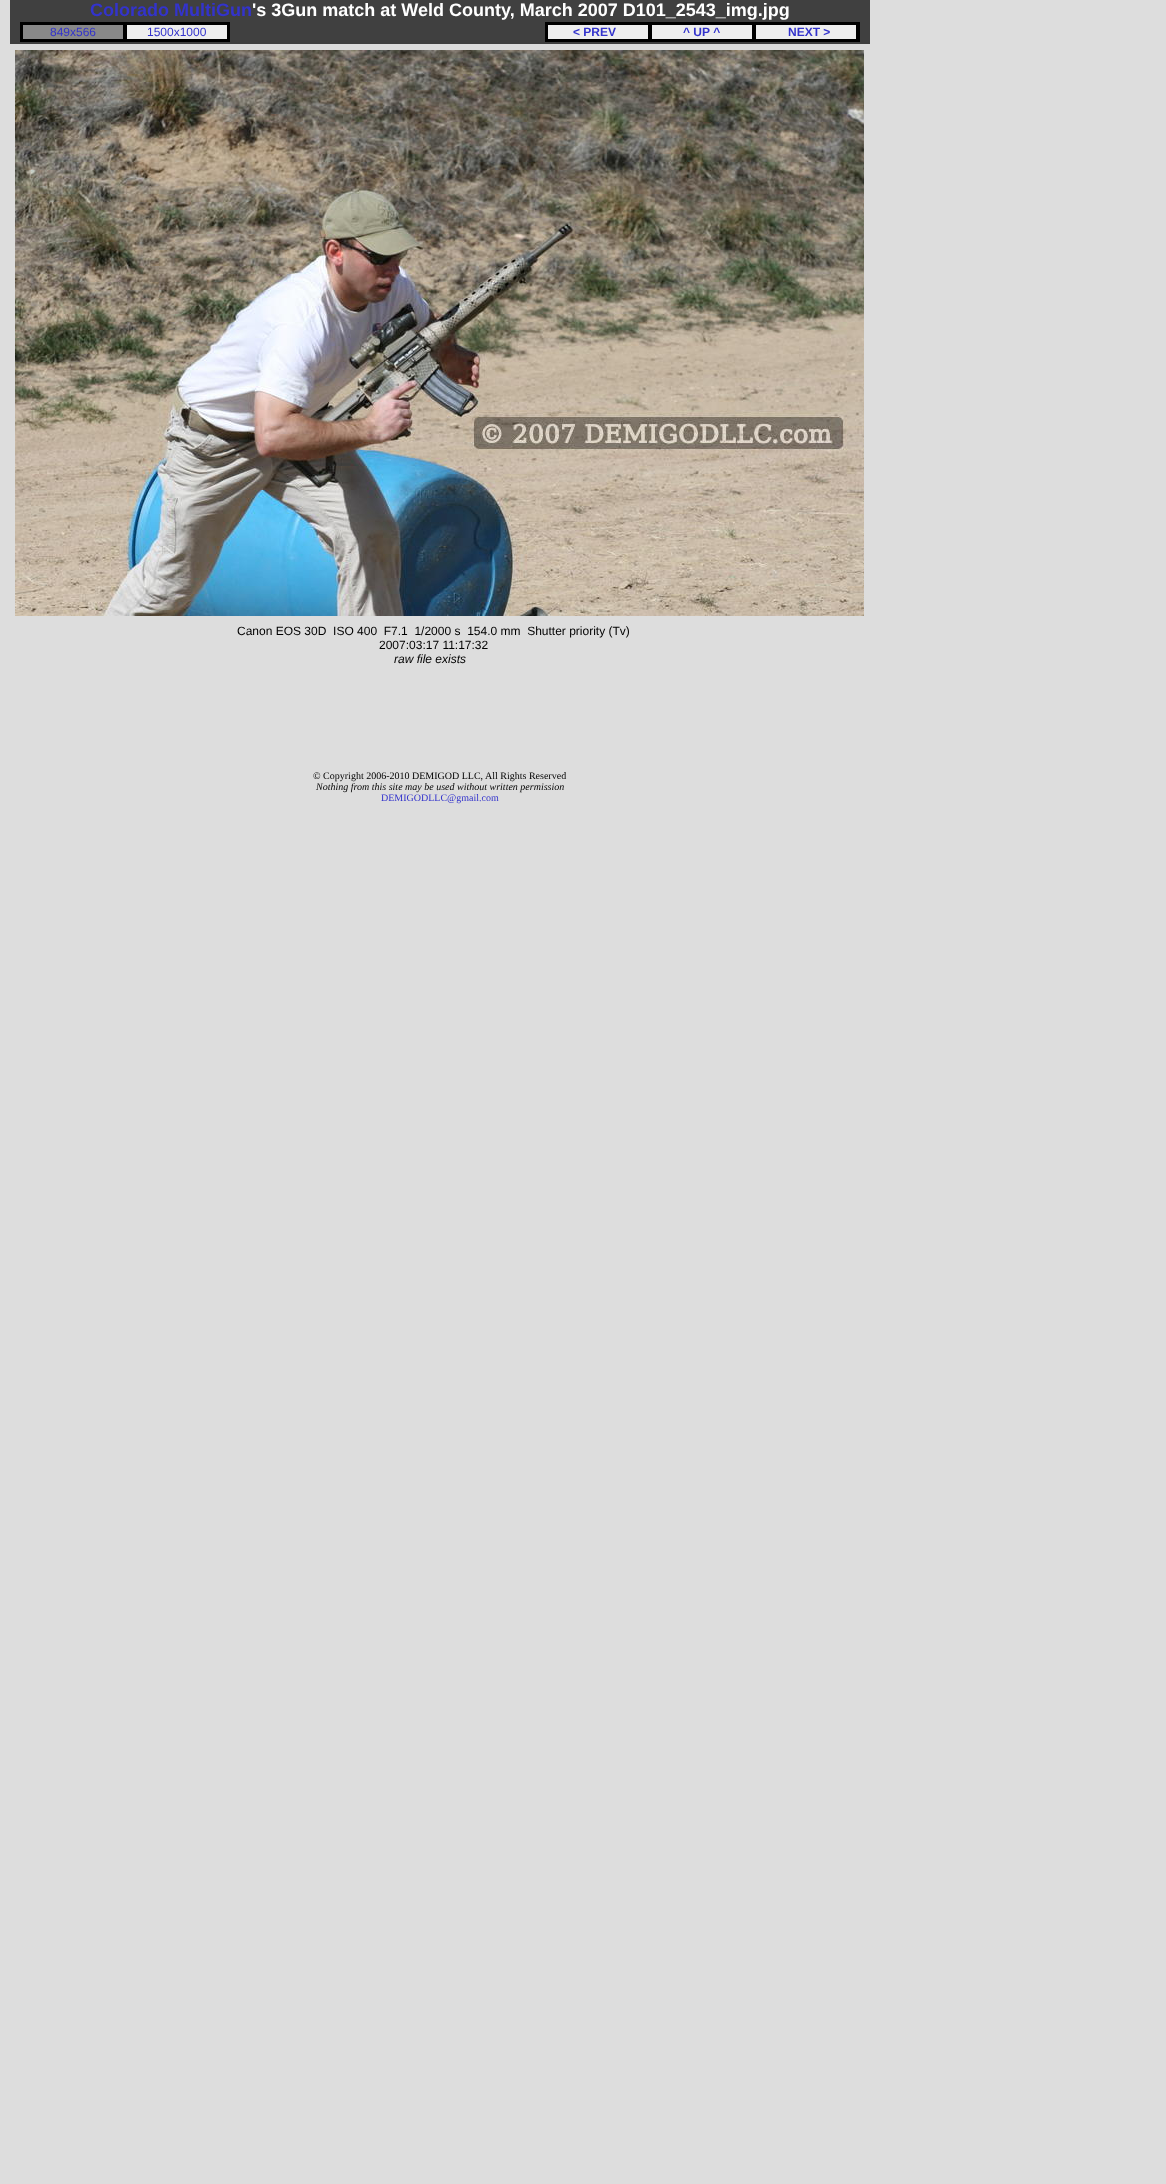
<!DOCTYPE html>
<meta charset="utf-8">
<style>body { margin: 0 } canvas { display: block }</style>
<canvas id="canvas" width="1166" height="2184"></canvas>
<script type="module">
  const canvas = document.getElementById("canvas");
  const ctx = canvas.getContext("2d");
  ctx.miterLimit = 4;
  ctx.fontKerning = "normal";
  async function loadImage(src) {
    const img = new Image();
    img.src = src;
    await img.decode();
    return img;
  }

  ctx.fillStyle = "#dddddd";
  ctx.fillRect(0, 0, 1166, 2184);
  ctx.fillStyle = "#404040";
  ctx.fillRect(10, 0, 860, 44);
  ctx.font = "bold 18px Liberation Sans";
  ctx.fillStyle = "#3333cc";
  ctx.fillText("Colorado MultiGun", 90, 16);
  ctx.fillStyle = "#ffffff";
  ctx.fillText("'s 3Gun match at Weld County, March 2007 D101_2543_img.jpg", 252, 16);
  ctx.fillStyle = "#000000";
  ctx.fillRect(20, 22, 210, 20);
  ctx.fillStyle = "#888888";
  ctx.fillRect(23, 25, 100, 14);
  ctx.font = "12px Liberation Sans";
  ctx.fillStyle = "#3333cc";
  ctx.fillText("849x566", 50, 36);
  ctx.fillStyle = "#eeeeee";
  ctx.fillRect(127, 25, 100, 14);
  ctx.fillStyle = "#3333cc";
  ctx.fillText("1500x1000", 147, 36);
  ctx.fillStyle = "#000000";
  ctx.fillRect(545, 22, 315, 20);
  ctx.fillStyle = "#eeeeee";
  ctx.fillRect(548, 25, 100, 14);
  ctx.font = "bold 12px Liberation Sans";
  ctx.fillStyle = "#3333cc";
  ctx.fillText("< PREV", 573, 36);
  ctx.fillStyle = "#eeeeee";
  ctx.fillRect(652, 25, 100, 14);
  ctx.fillStyle = "#3333cc";
  ctx.fillText("^ UP ^", 683, 36);
  ctx.fillStyle = "#eeeeee";
  ctx.fillRect(756, 25, 100, 14);
  ctx.fillStyle = "#3333cc";
  ctx.fillText("NEXT >", 788, 36);
  ctx.drawImage(await loadImage("img1.png"), 15, 50, 849, 566);
  ctx.font = "12px Liberation Sans";
  ctx.fillStyle = "#000000";
  ctx.fillText("Canon EOS 30D  ISO 400  F7.1  1/2000 s  154.0 mm  Shutter priority (Tv)", 237, 635);
  ctx.fillText("2007:03:17 11:17:32", 379, 649);
  ctx.font = "italic 12px Liberation Sans";
  ctx.fillText("raw file exists", 394, 663);
  ctx.font = "10px Liberation Serif";
  ctx.fillText("© Copyright 2006-2010 DEMIGOD LLC, All Rights Reserved", 313, 779);
  ctx.font = "italic 10px Liberation Serif";
  ctx.fillText("Nothing from this site may be used without written permission", 316, 790);
  ctx.font = "10px Liberation Serif";
  ctx.fillStyle = "#3333cc";
  ctx.fillText("DEMIGODLLC@gmail.com", 381, 801);
</script>
